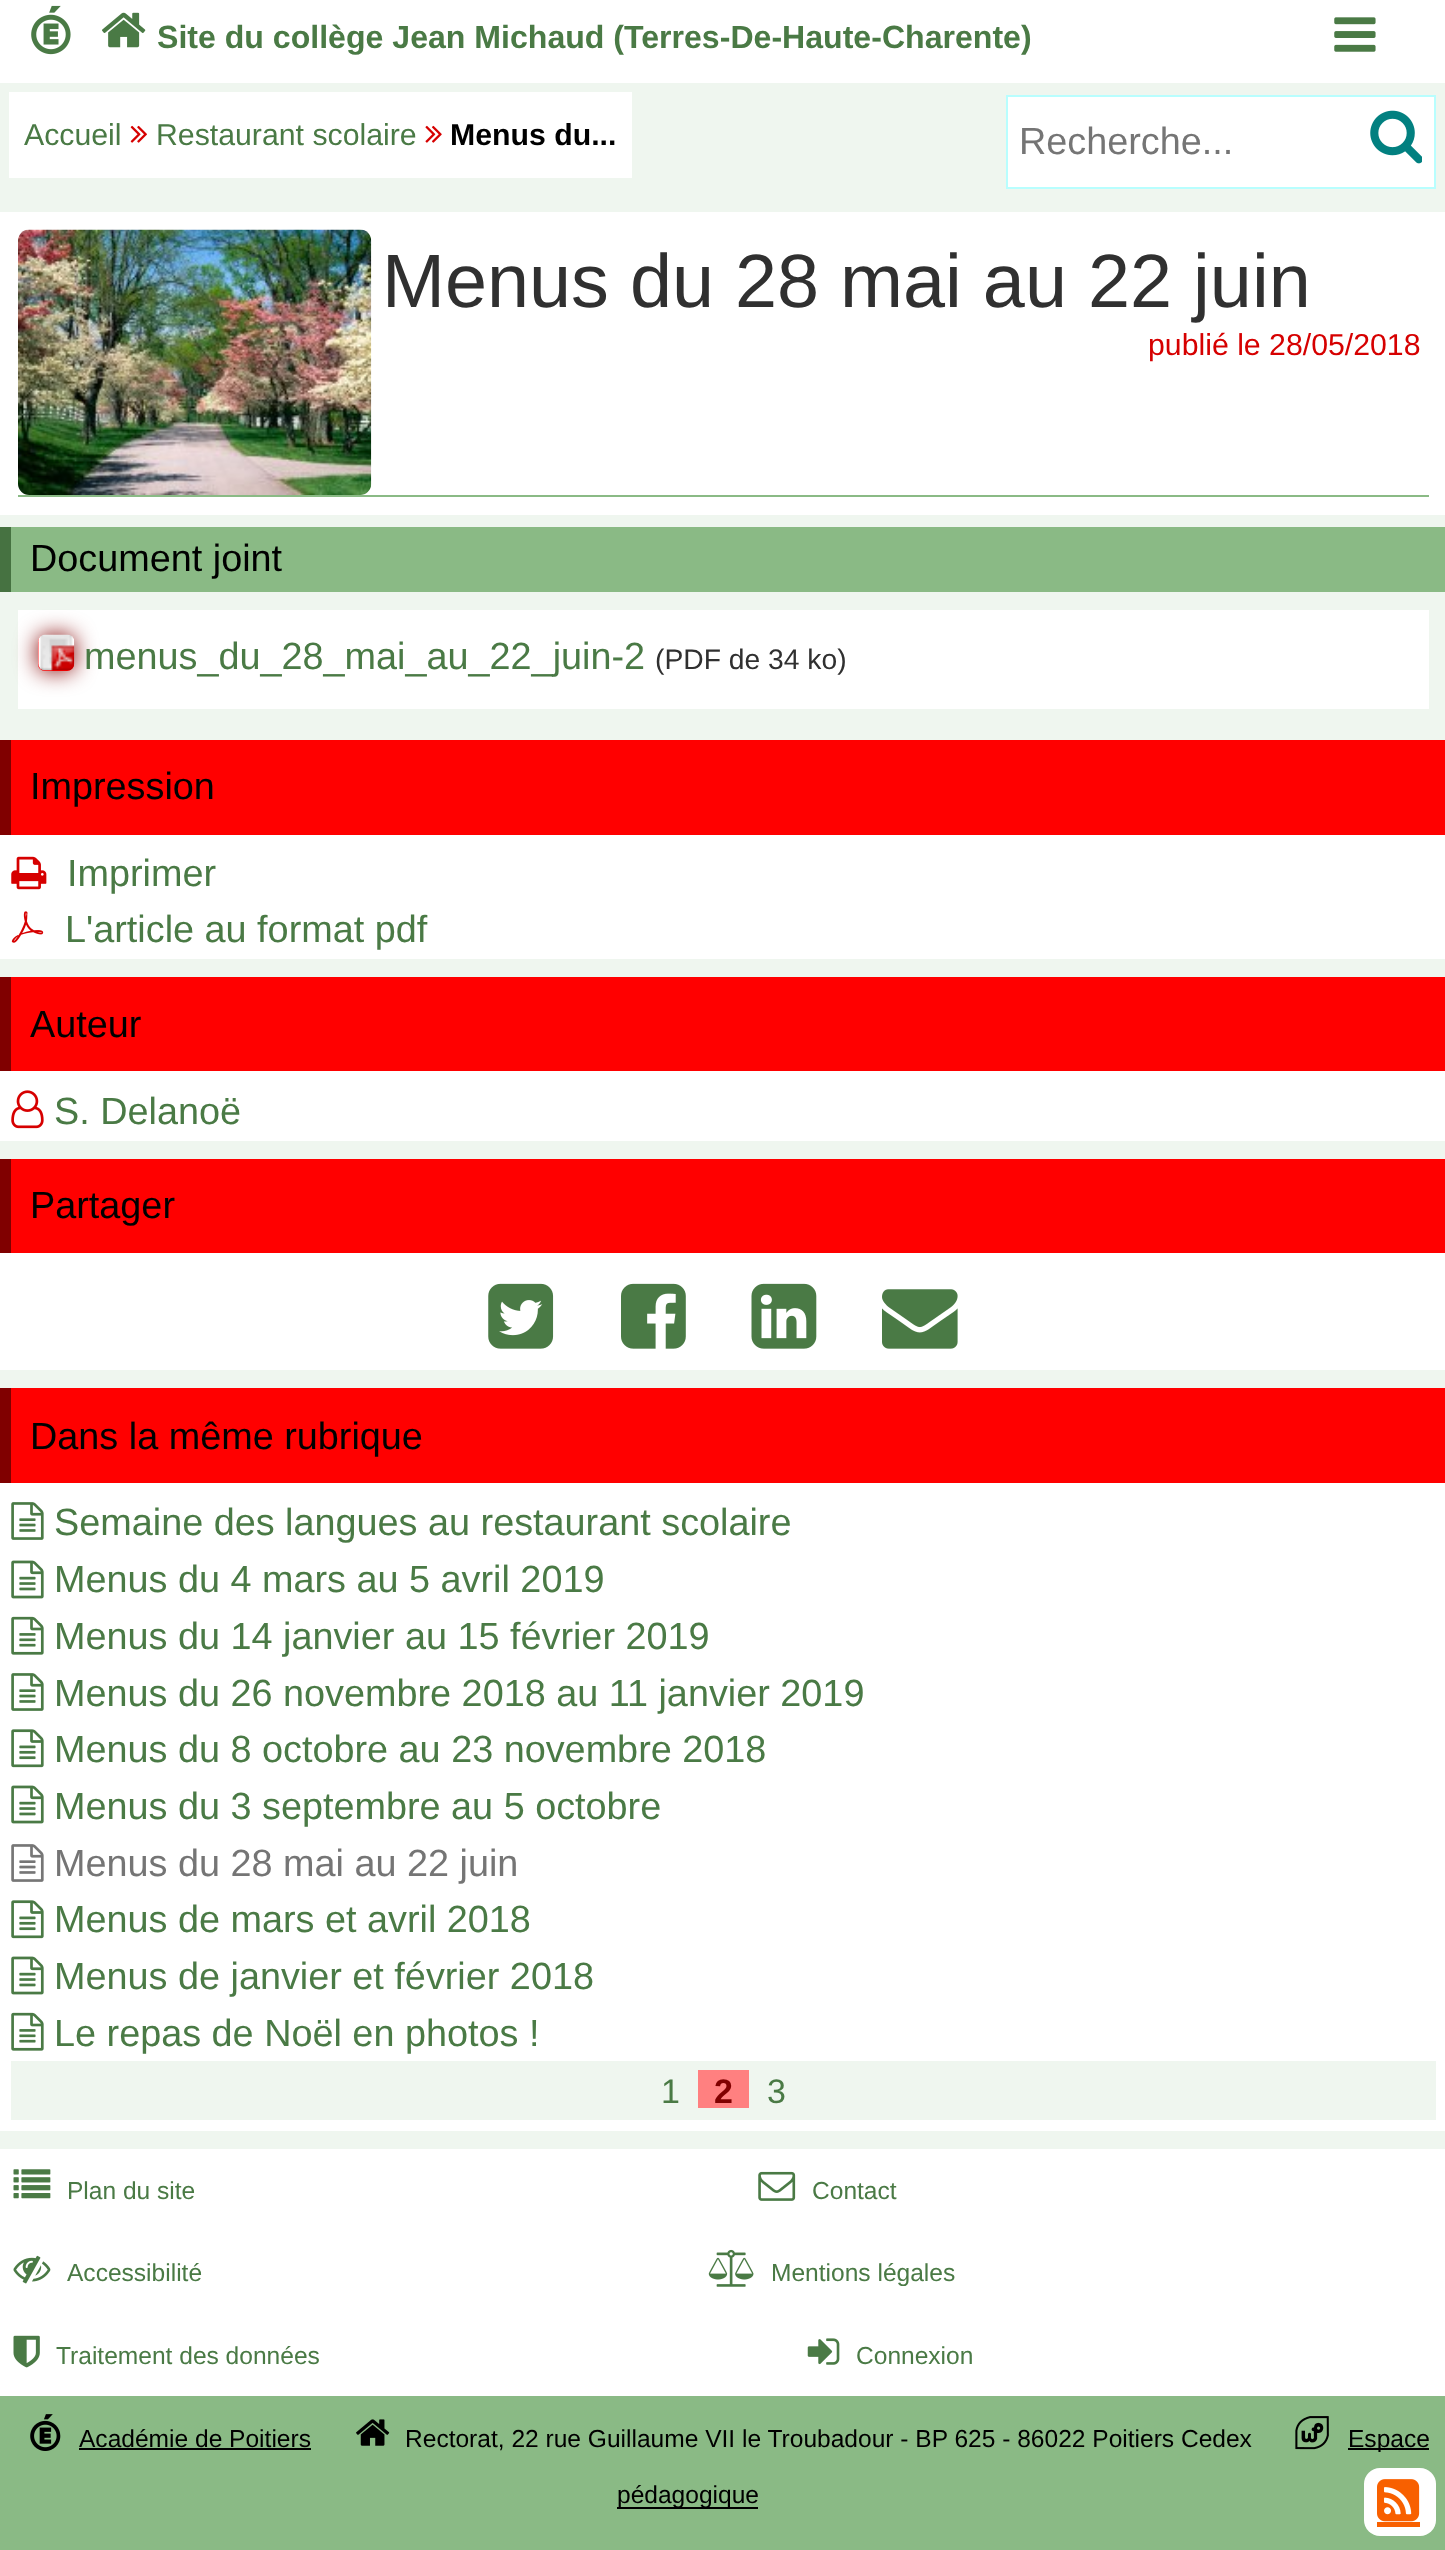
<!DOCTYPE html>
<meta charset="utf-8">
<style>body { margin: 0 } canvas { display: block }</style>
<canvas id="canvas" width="1445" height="2550"></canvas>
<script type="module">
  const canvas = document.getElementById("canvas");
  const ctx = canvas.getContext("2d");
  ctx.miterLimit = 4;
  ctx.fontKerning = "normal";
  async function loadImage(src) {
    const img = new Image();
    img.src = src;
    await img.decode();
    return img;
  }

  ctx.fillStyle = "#eff6ef";
  ctx.fillRect(0, 0, 1445, 2550);
  ctx.fillStyle = "#ffffff";
  ctx.fillRect(0, 0, 1445, 83);
  ctx.drawImage(await loadImage("img1.png"), 31, 5, 40, 50);
  ctx.drawImage(await loadImage("img2.png"), 102, 12, 44, 36);
  ctx.font = "bold 32.1px Liberation Sans";
  ctx.fillStyle = "#4a7a45";
  ctx.fillText("Site du collège Jean Michaud (Terres-De-Haute-Charente)", 157, 48);
  ctx.drawImage(await loadImage("img3.png"), 1334, 17, 42, 35);
  ctx.fillStyle = "#ffffff";
  ctx.fillRect(9, 92, 623, 86);
  ctx.font = "30.25px Liberation Sans";
  ctx.fillStyle = "#4a7a45";
  ctx.fillText("Accueil", 24, 145);
  ctx.drawImage(await loadImage("img4.png"), 130, 125, 17, 18);
  ctx.fillText("Restaurant scolaire", 156, 145);
  ctx.drawImage(await loadImage("img5.png"), 425, 125, 17, 18);
  ctx.font = "bold 30.25px Liberation Sans";
  ctx.fillStyle = "#000000";
  ctx.fillText("Menus du...", 450, 145);
  ctx.fillStyle = "#ffffff";
  ctx.beginPath();
  ctx.rect(1007, 96, 428, 92);
  ctx.fill();
  ctx.strokeStyle = "#b8fefe";
  ctx.lineWidth = 2;
  ctx.stroke();
  ctx.font = "37.8px Liberation Sans";
  ctx.fillStyle = "#757575";
  ctx.fillText("Recherche...", 1019, 154);
  ctx.drawImage(await loadImage("img6.png"), 1370, 110, 52, 54);
  ctx.fillStyle = "#ffffff";
  ctx.fillRect(0, 212, 1445, 303);
  ctx.drawImage(await loadImage("img7.png"), 18, 229, 354, 266);
  ctx.font = "75.6px Liberation Sans";
  ctx.fillStyle = "#303030";
  ctx.fillText("Menus du 28 mai au 22 juin", 382, 307);
  ctx.font = "30.25px Liberation Sans";
  ctx.fillStyle = "#d60000";
  ctx.fillText("publié le 28/05/2018", 1148, 355);
  ctx.fillStyle = "#8aba85";
  ctx.fillRect(18, 495, 1411, 2);
  ctx.fillRect(11, 527, 1434, 65);
  ctx.fillStyle = "#467241";
  ctx.fillRect(0, 527, 11, 65);
  ctx.font = "37.8px Liberation Sans";
  ctx.fillStyle = "#000000";
  ctx.fillText("Document joint", 30, 571);
  ctx.fillStyle = "#ffffff";
  ctx.fillRect(18, 610, 1411, 99);
  ctx.fillStyle = "#800000";
  ctx.filter = "blur(11px)";
  ctx.beginPath();
  ctx.roundRect(38, 635, 36, 36, 7);
  ctx.fill();
  ctx.filter = "none";
  ctx.fillStyle = "#ff0000";
  ctx.beginPath();
  ctx.roundRect(38, 635, 36, 36, 7);
  ctx.fill();
  ctx.drawImage(await loadImage("img8.png"), 38, 634, 37, 37);
  ctx.fillStyle = "#4a7a45";
  ctx.fillText("menus_du_28_mai_au_22_juin-2", 84, 669);
  ctx.font = "28.25px Liberation Sans";
  ctx.fillStyle = "#303030";
  ctx.fillText("(PDF de 34 ko)", 655, 669);
  ctx.fillStyle = "#ffffff";
  ctx.fillRect(0, 835, 1445, 124);
  ctx.fillStyle = "#ff0000";
  ctx.fillRect(11, 740, 1434, 95);
  ctx.fillStyle = "#800000";
  ctx.fillRect(0, 740, 11, 95);
  ctx.font = "37.8px Liberation Sans";
  ctx.fillStyle = "#000000";
  ctx.fillText("Impression", 30, 799);
  ctx.drawImage(await loadImage("img9.png"), 11, 856, 36, 34);
  ctx.fillStyle = "#4a7a45";
  ctx.fillText("Imprimer", 67, 886);
  ctx.drawImage(await loadImage("img10.png"), 11, 911, 33, 32);
  ctx.fillText("L'article au format pdf", 65, 942);
  ctx.fillStyle = "#ffffff";
  ctx.fillRect(0, 1071, 1445, 70);
  ctx.fillStyle = "#ff0000";
  ctx.fillRect(11, 977, 1434, 94);
  ctx.fillStyle = "#800000";
  ctx.fillRect(0, 977, 11, 94);
  ctx.fillStyle = "#000000";
  ctx.fillText("Auteur", 30, 1037);
  ctx.drawImage(await loadImage("img11.png"), 11, 1090, 33, 39);
  ctx.fillStyle = "#4a7a45";
  ctx.fillText("S. Delanoë", 54, 1124);
  ctx.fillStyle = "#ffffff";
  ctx.fillRect(0, 1253, 1445, 117);
  ctx.fillStyle = "#ff0000";
  ctx.fillRect(11, 1159, 1434, 94);
  ctx.fillStyle = "#800000";
  ctx.fillRect(0, 1159, 11, 94);
  ctx.fillStyle = "#000000";
  ctx.fillText("Partager", 30, 1218);
  ctx.drawImage(await loadImage("img12.png"), 488, 1283, 66, 66);
  ctx.drawImage(await loadImage("img13.png"), 621, 1283, 65, 66);
  ctx.drawImage(await loadImage("img14.png"), 751, 1283, 66, 66);
  ctx.drawImage(await loadImage("img15.png"), 882, 1289, 76, 60);
  ctx.fillStyle = "#ffffff";
  ctx.fillRect(0, 1483, 1445, 648);
  ctx.fillStyle = "#ff0000";
  ctx.fillRect(11, 1388, 1434, 95);
  ctx.fillStyle = "#800000";
  ctx.fillRect(0, 1388, 11, 95);
  ctx.fillStyle = "#000000";
  ctx.fillText("Dans la même rubrique", 30, 1449);
  ctx.drawImage(await loadImage("img16.png"), 11, 1502, 33, 38);
  ctx.fillStyle = "#4a7a45";
  ctx.fillText("Semaine des langues au restaurant scolaire", 54, 1535);
  ctx.drawImage(await loadImage("img17.png"), 11, 1560, 33, 39);
  ctx.fillText("Menus du 4 mars au 5 avril 2019", 54, 1592);
  ctx.drawImage(await loadImage("img18.png"), 11, 1616, 33, 39);
  ctx.fillText("Menus du 14 janvier au 15 février 2019", 54, 1649);
  ctx.drawImage(await loadImage("img16.png"), 11, 1673, 33, 38);
  ctx.fillText("Menus du 26 novembre 2018 au 11 janvier 2019", 54, 1706);
  ctx.drawImage(await loadImage("img19.png"), 11, 1729, 33, 39);
  ctx.fillText("Menus du 8 octobre au 23 novembre 2018", 54, 1762);
  ctx.drawImage(await loadImage("img17.png"), 11, 1785, 33, 39);
  ctx.fillText("Menus du 3 septembre au 5 octobre", 54, 1819);
  ctx.drawImage(await loadImage("img20.png"), 11, 1844, 33, 38);
  ctx.fillStyle = "#757575";
  ctx.fillText("Menus du 28 mai au 22 juin", 54, 1876);
  ctx.drawImage(await loadImage("img19.png"), 11, 1900, 33, 39);
  ctx.fillStyle = "#4a7a45";
  ctx.fillText("Menus de mars et avril 2018", 54, 1932);
  ctx.drawImage(await loadImage("img17.png"), 11, 1956, 33, 39);
  ctx.fillText("Menus de janvier et février 2018", 54, 1989);
  ctx.drawImage(await loadImage("img18.png"), 11, 2012, 33, 39);
  ctx.fillText("Le repas de Noël en photos !", 54, 2046);
  ctx.fillStyle = "#eff6ef";
  ctx.fillRect(11, 2061, 1425, 59);
  ctx.font = "34px Liberation Sans";
  ctx.fillStyle = "#4a7a45";
  ctx.fillText("1", 661, 2103);
  ctx.fillStyle = "#ff8080";
  ctx.fillRect(698, 2070, 51, 38);
  ctx.font = "bold 34px Liberation Sans";
  ctx.fillStyle = "#800000";
  ctx.fillText("2", 714, 2103);
  ctx.font = "34px Liberation Sans";
  ctx.fillStyle = "#4a7a45";
  ctx.fillText("3", 767, 2103);
  ctx.fillStyle = "#ffffff";
  ctx.fillRect(0, 2149, 1445, 247);
  ctx.drawImage(await loadImage("img21.png"), 13, 2169, 38, 30);
  ctx.font = "24.55px Liberation Sans";
  ctx.fillStyle = "#4a7a45";
  ctx.fillText("Plan du site", 67, 2199);
  ctx.drawImage(await loadImage("img22.png"), 758, 2171, 38, 30);
  ctx.fillText("Contact", 812, 2199);
  ctx.drawImage(await loadImage("img23.png"), 13, 2255, 38, 29);
  ctx.fillText("Accessibilité", 67, 2281);
  ctx.drawImage(await loadImage("img24.png"), 708, 2249, 46, 38);
  ctx.fillText("Mentions légales", 771, 2281);
  ctx.drawImage(await loadImage("img25.png"), 13, 2335, 27, 33);
  ctx.fillText("Traitement des données", 56, 2364);
  ctx.drawImage(await loadImage("img26.png"), 807, 2338, 33, 27);
  ctx.fillText("Connexion", 856, 2364);
  ctx.fillStyle = "#8aba85";
  ctx.fillRect(0, 2396, 1445, 154);
  ctx.drawImage(await loadImage("img27.png"), 30, 2414, 31, 37);
  ctx.fillStyle = "#000000";
  ctx.fillText("Académie de Poitiers", 79, 2447);
  ctx.fillRect(79, 2448, 232, 2);
  ctx.drawImage(await loadImage("img28.png"), 356, 2419, 34, 27);
  ctx.fillText("Rectorat, 22 rue Guillaume VII le Troubadour - BP 625 - 86022 Poitiers Cedex", 405, 2447);
  ctx.drawImage(await loadImage("img29.png"), 1295, 2416, 34, 34);
  ctx.fillRect(1348, 2448, 81, 2);
  ctx.fillText("Espace", 1348, 2447);
  ctx.fillRect(617, 2507, 141, 2);
  ctx.fillText("pédagogique", 617, 2503);
  ctx.fillStyle = "#ffffff";
  ctx.beginPath();
  ctx.roundRect(1364, 2468, 72, 68, 16);
  ctx.fill();
  ctx.drawImage(await loadImage("img30.png"), 1377, 2479, 43, 43);
  ctx.fillStyle = "#f86000";
  ctx.fillRect(1377, 2522, 43, 5);
</script>
